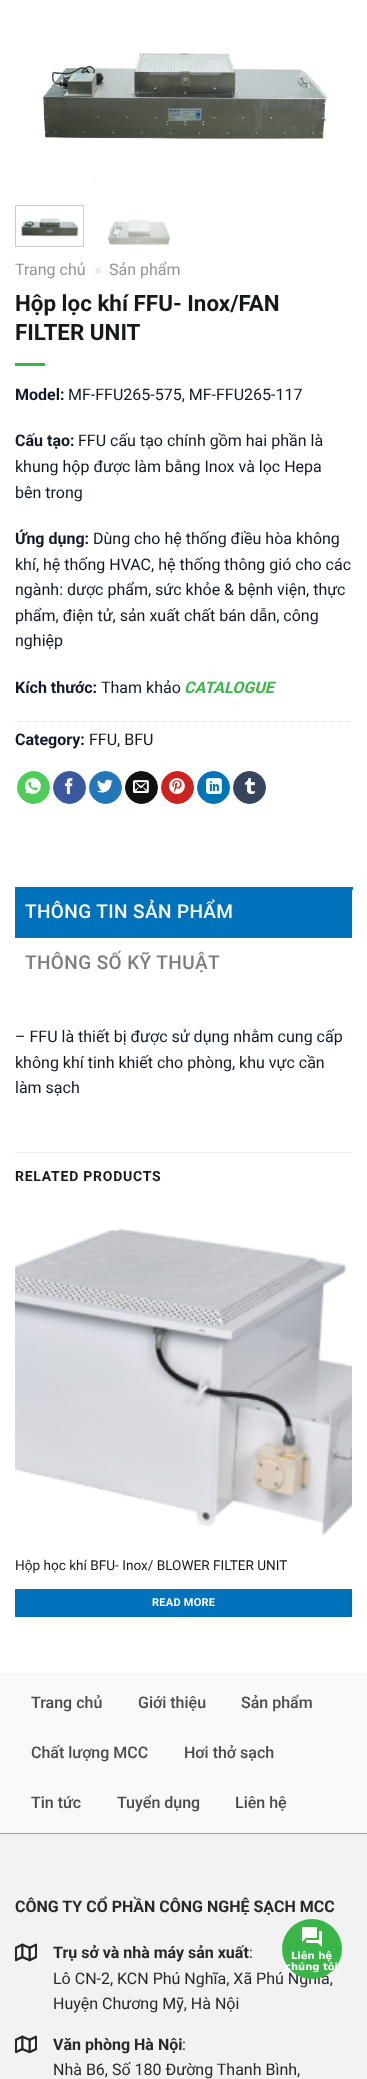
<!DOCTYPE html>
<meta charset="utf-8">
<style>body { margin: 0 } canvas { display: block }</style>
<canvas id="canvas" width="367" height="2079"></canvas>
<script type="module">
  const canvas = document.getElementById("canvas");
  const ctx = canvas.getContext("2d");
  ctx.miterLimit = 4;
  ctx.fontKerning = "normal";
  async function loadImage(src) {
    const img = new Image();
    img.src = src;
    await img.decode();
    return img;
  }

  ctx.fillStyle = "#ffffff";
  ctx.fillRect(0, 0, 367, 2079);
  ctx.drawImage(await loadImage("img1.png"), 42, 52, 288, 128);
  ctx.strokeStyle = "#cccccc";
  ctx.strokeRect(15.5, 205.5, 68, 41);
  ctx.drawImage(await loadImage("img2.png"), 21, 218, 58, 19);
  ctx.drawImage(await loadImage("img3.png"), 107, 219, 64, 26);
  ctx.font = "16px Roboto";
  ctx.fillStyle = "#949494";
  ctx.fillText("Trang chủ", 15, 275);
  ctx.fillStyle = "#d9d9d9";
  ctx.fillText("»", 94, 275);
  ctx.fillStyle = "#949494";
  ctx.fillText("Sản phẩm", 109, 275);
  ctx.font = "bold 22.4px Roboto";
  ctx.fillStyle = "#17181c";
  ctx.fillText("Hộp lọc khí FFU- Inox/FAN", 15, 311);
  ctx.fillText("FILTER UNIT", 15, 340);
  ctx.fillStyle = "#39b54a";
  ctx.fillRect(15, 363, 30, 3);
  ctx.font = "bold 16px Roboto";
  ctx.fillStyle = "#121828";
  ctx.fillText("Model:", 15, 400);
  ctx.font = "16px Roboto";
  ctx.fillText("MF-FFU265-575, MF-FFU265-117", 68, 400);
  ctx.font = "bold 16px Roboto";
  ctx.fillText("Cấu tạo:", 15, 446);
  ctx.font = "16px Roboto";
  ctx.fillText("FFU cấu tạo chính gồm hai phần là", 78, 446);
  ctx.fillText("khung hộp được làm bằng Inox và lọc Hepa", 15, 472);
  ctx.fillText("bên trong", 15, 498);
  ctx.font = "bold 16px Roboto";
  ctx.fillText("Ứng dụng:", 15, 544);
  ctx.font = "16px Roboto";
  ctx.fillText("Dùng cho hệ thống điều hòa không", 93, 544);
  ctx.fillText("khí, hệ thống HVAC, hệ thống thông gió cho các", 15, 570);
  ctx.fillText("ngành: dược phẩm, sức khỏe & bệnh viện, thực", 15, 595);
  ctx.fillText("phẩm, điện tử, sản xuất chất bán dẫn, công", 15, 621);
  ctx.fillText("nghiệp", 15, 646);
  ctx.font = "bold 16px Roboto";
  ctx.fillText("Kích thước:", 15, 693);
  ctx.font = "16px Roboto";
  ctx.fillText("Tham khảo", 101, 693);
  ctx.font = "italic bold 16px Roboto";
  ctx.fillStyle = "#39b54a";
  ctx.fillText("CATALOGUE", 184, 693);
  ctx.beginPath();
  ctx.moveTo(15, 721.5);
  ctx.lineTo(352, 721.5);
  ctx.strokeStyle = "#dddddd";
  ctx.setLineDash([1, 1]);
  ctx.stroke();
  ctx.font = "bold 16px Roboto";
  ctx.fillStyle = "#121828";
  ctx.fillText("Category:", 15, 745);
  ctx.font = "16px Roboto";
  ctx.fillStyle = "#17181c";
  ctx.fillText("FFU, BFU", 89, 745);
  ctx.fillStyle = "#51cb5a";
  ctx.beginPath();
  ctx.arc(33.5, 787.5, 16, 0, Math.PI * 2);
  ctx.fill();
  ctx.strokeStyle = "#51cb5a";
  ctx.setLineDash([]);
  ctx.stroke();
  ctx.drawImage(await loadImage("img4.png"), 25, 778, 16, 16);
  ctx.fillStyle = "#3a589d";
  ctx.beginPath();
  ctx.arc(69.5, 787.5, 16, 0, Math.PI * 2);
  ctx.fill();
  ctx.strokeStyle = "#3a589d";
  ctx.stroke();
  ctx.drawImage(await loadImage("img5.png"), 64, 778, 9, 16);
  ctx.fillStyle = "#2478ba";
  ctx.beginPath();
  ctx.arc(105.5, 787.5, 16, 0, Math.PI * 2);
  ctx.fill();
  ctx.strokeStyle = "#2478ba";
  ctx.stroke();
  ctx.drawImage(await loadImage("img6.png"), 97, 779, 16, 14);
  ctx.fillStyle = "#111111";
  ctx.beginPath();
  ctx.arc(141.5, 787.5, 16, 0, Math.PI * 2);
  ctx.fill();
  ctx.strokeStyle = "#111111";
  ctx.stroke();
  ctx.drawImage(await loadImage("img7.png"), 133, 780, 16, 13);
  ctx.fillStyle = "#cb2320";
  ctx.beginPath();
  ctx.arc(177.5, 787.5, 16, 0, Math.PI * 2);
  ctx.fill();
  ctx.strokeStyle = "#cb2320";
  ctx.stroke();
  ctx.drawImage(await loadImage("img8.png"), 169, 778, 16, 16);
  ctx.fillStyle = "#0072b7";
  ctx.beginPath();
  ctx.arc(213.5, 787.5, 16, 0, Math.PI * 2);
  ctx.fill();
  ctx.strokeStyle = "#0072b7";
  ctx.stroke();
  ctx.drawImage(await loadImage("img9.png"), 206, 778, 16, 16);
  ctx.fillStyle = "#36455d";
  ctx.beginPath();
  ctx.arc(249.5, 787.5, 16, 0, Math.PI * 2);
  ctx.fill();
  ctx.strokeStyle = "#36455d";
  ctx.stroke();
  ctx.drawImage(await loadImage("img10.png"), 244, 778, 11, 16);
  ctx.fillStyle = "#0072bc";
  ctx.fillRect(15, 887, 337, 51);
  ctx.fillRect(352, 887, 1, 3);
  ctx.letterSpacing = "0.4px";
  ctx.font = "500 19px Roboto";
  ctx.fillStyle = "#ffffff";
  ctx.fillText("THÔNG TIN SẢN PHẨM", 25, 918);
  ctx.fillStyle = "#7d7d7d";
  ctx.fillText("THÔNG SỐ KỸ THUẬT", 25, 969);
  ctx.letterSpacing = "0px";
  ctx.font = "16px Roboto";
  ctx.fillStyle = "#121828";
  ctx.fillText("– FFU là thiết bị được sử dụng nhằm cung cấp", 15, 1042);
  ctx.fillText("không khí tinh khiết cho phòng, khu vực cần", 15, 1068);
  ctx.fillText("làm sạch", 15, 1093);
  ctx.fillStyle = "#ececec";
  ctx.fillRect(15, 1152, 337, 1);
  ctx.letterSpacing = "0.75px";
  ctx.font = "bold 14px Roboto";
  ctx.fillStyle = "#17181c";
  ctx.fillText("RELATED PRODUCTS", 15, 1181);
  ctx.drawImage(await loadImage("img11.png"), 15, 1228, 337, 308);
  ctx.letterSpacing = "0px";
  ctx.font = "13.6px Roboto";
  ctx.fillText("Hộp học khí BFU- Inox/ BLOWER FILTER UNIT", 15, 1570);
  ctx.fillStyle = "#0072bc";
  ctx.beginPath();
  ctx.rect(15.5, 1589.5, 336, 27);
  ctx.fill();
  ctx.strokeStyle = "#006cb3";
  ctx.stroke();
  ctx.letterSpacing = "0.25px";
  ctx.font = "bold 11px Roboto";
  ctx.fillStyle = "#ffffff";
  ctx.fillText("READ MORE", 152, 1606);
  ctx.fillStyle = "#f9f9f9";
  ctx.fillRect(0, 1673, 367, 160);
  ctx.letterSpacing = "0px";
  ctx.font = "500 16px Roboto";
  ctx.fillStyle = "#4c4a4a";
  ctx.fillText("Trang chủ", 31, 1708);
  ctx.fillText("Giới thiệu", 138, 1708);
  ctx.fillText("Sản phẩm", 241, 1708);
  ctx.fillText("Chất lượng MCC", 31, 1758);
  ctx.fillText("Hơi thở sạch", 184, 1758);
  ctx.fillText("Tin tức", 31, 1808);
  ctx.fillText("Tuyển dụng", 117, 1808);
  ctx.fillText("Liên hệ", 235, 1808);
  ctx.fillStyle = "#9c9c9c";
  ctx.fillRect(0, 1833, 367, 1);
  ctx.fillStyle = "#f2f2f2";
  ctx.fillRect(0, 1834, 367, 245);
  ctx.font = "bold 16px Roboto";
  ctx.fillStyle = "#282828";
  ctx.fillText("CÔNG TY CỔ PHẦN CÔNG NGHỆ SẠCH MCC", 15, 1912);
  ctx.drawImage(await loadImage("img12.png"), 15, 1943, 22, 19);
  ctx.fillText("Trụ sở và nhà máy sản xuất", 53, 1958);
  ctx.font = "16px Roboto";
  ctx.fillText(":", 249, 1958);
  ctx.fillText("Lô CN-2, KCN Phú Nghĩa, Xã Phú Nghĩa,", 53, 1984);
  ctx.fillText("Huyện Chương Mỹ, Hà Nội", 53, 2009);
  ctx.drawImage(await loadImage("img13.png"), 15, 2035, 22, 18);
  ctx.font = "bold 16px Roboto";
  ctx.fillText("Văn phòng Hà Nội", 53, 2050);
  ctx.font = "16px Roboto";
  ctx.fillText(":", 182, 2050);
  ctx.fillText("Nhà B6, Số 180 Đường Thanh Bình,", 53, 2075);
  ctx.fillStyle = "#39b54a";
  ctx.beginPath();
  ctx.arc(312, 1949, 30, 0, Math.PI * 2);
  ctx.fill();
  ctx.drawImage(await loadImage("img14.png"), 302, 1927, 20, 20);
  ctx.font = "bold 10px DejaVu Sans";
  ctx.fillStyle = "#ffffff";
  ctx.fillText("Liên hệ", 291, 1959);
  ctx.fillText("chúng tôi", 285, 1970);
</script>
